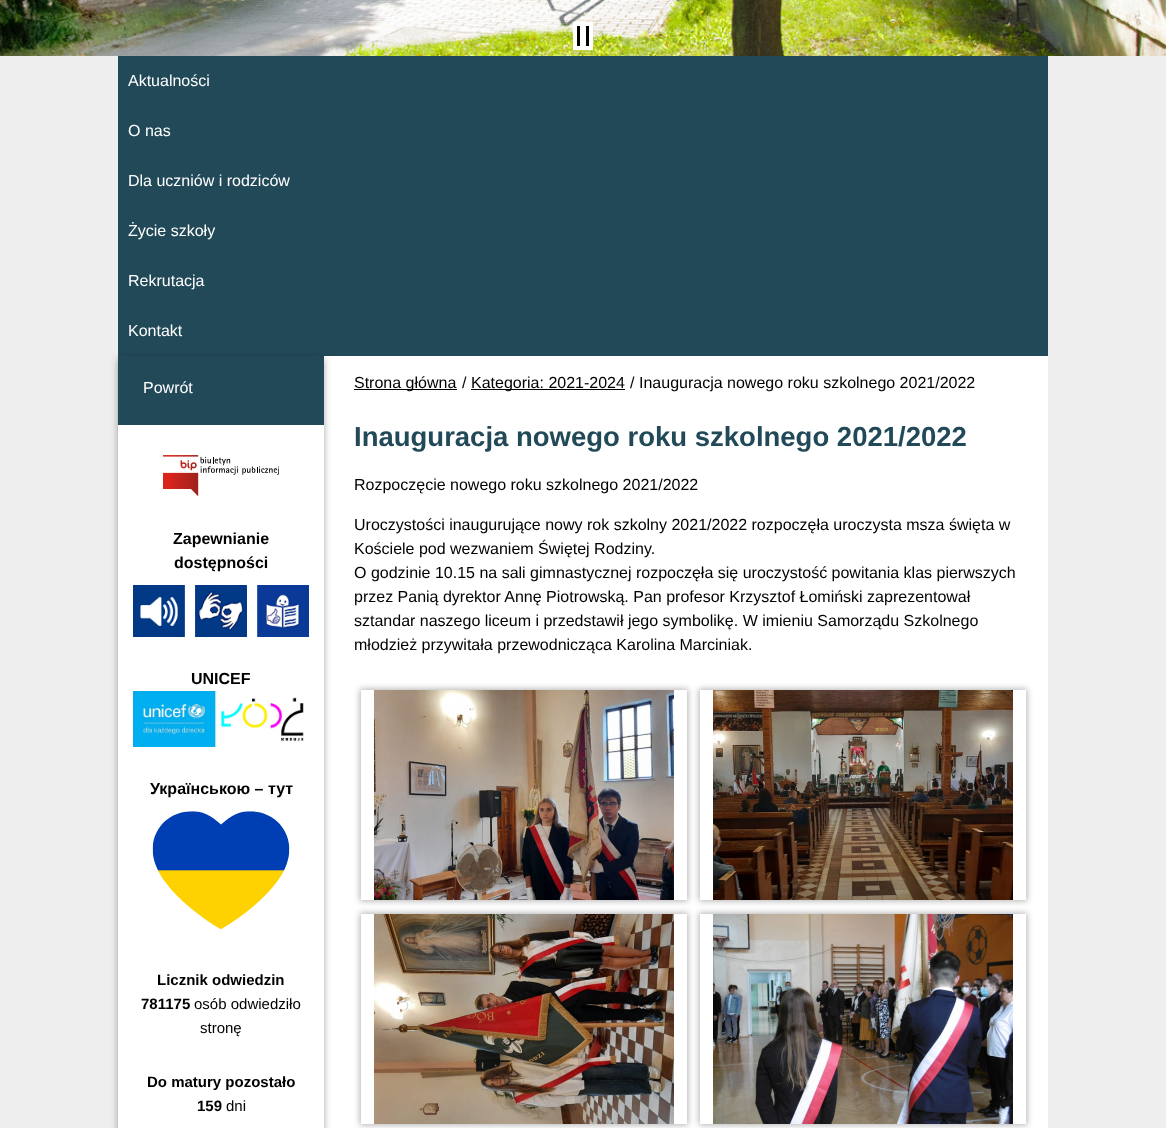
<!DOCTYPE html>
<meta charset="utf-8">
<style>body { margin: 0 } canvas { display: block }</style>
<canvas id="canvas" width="1166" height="1128"></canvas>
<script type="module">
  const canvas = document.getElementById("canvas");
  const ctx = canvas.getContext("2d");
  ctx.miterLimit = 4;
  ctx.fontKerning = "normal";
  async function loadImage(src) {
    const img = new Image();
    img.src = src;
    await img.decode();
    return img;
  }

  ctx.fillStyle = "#eeeeee";
  ctx.fillRect(0, 0, 1166, 1128);
  ctx.drawImage(await loadImage("img1.png"), 0, 0, 1166, 56);
  ctx.fillStyle = "#ffffff";
  ctx.fillRect(580, 26, 6, 20);
  ctx.fillStyle = "#000000";
  ctx.fillRect(586, 26, 3, 20);
  ctx.fillRect(577, 26, 3, 20);
  ctx.strokeStyle = "#ffffff";
  ctx.lineWidth = 4;
  ctx.strokeRect(575, 24, 16, 24);
  ctx.fillStyle = "#224958";
  ctx.fillRect(118, 56, 930, 300);
  ctx.font = "16px Liberation Sans";
  ctx.fillStyle = "#ffffff";
  ctx.fillText("Aktualności", 128, 86);
  ctx.fillText("O nas", 128, 136);
  ctx.fillText("Dla uczniów i rodziców", 128, 186);
  ctx.fillText("Życie szkoły", 128, 236);
  ctx.fillText("Rekrutacja", 128, 286);
  ctx.fillText("Kontakt", 128, 336);
  ctx.fillRect(118, 356, 930, 772);
  ctx.save();
  ctx.beginPath();
  ctx.moveTo(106, 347);
  ctx.lineTo(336, 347);
  ctx.lineTo(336, 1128);
  ctx.lineTo(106, 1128);
  ctx.closePath();
  ctx.moveTo(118, 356);
  ctx.lineTo(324, 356);
  ctx.lineTo(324, 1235);
  ctx.lineTo(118, 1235);
  ctx.closePath();
  ctx.clip("evenodd");
  ctx.fillStyle = "rgba(0, 0, 0, 0.35)";
  ctx.filter = "blur(3.5px)";
  ctx.beginPath();
  ctx.rect(118, 359, 206, 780);
  ctx.fill();
  ctx.filter = "none";
  ctx.restore();
  ctx.fillStyle = "#224958";
  ctx.fillRect(118, 356, 206, 69);
  ctx.fillStyle = "#ffffff";
  ctx.fillText("Powrót", 143, 393);
  ctx.drawImage(await loadImage("img2.png"), 163, 455, 116, 42);
  ctx.font = "bold 16px Liberation Sans";
  ctx.fillStyle = "#000000";
  ctx.fillText("Zapewnianie", 173, 544);
  ctx.fillText("dostępności", 174, 568);
  ctx.drawImage(await loadImage("img3.png"), 133, 585, 176, 52);
  ctx.fillText("UNICEF", 191, 684);
  ctx.drawImage(await loadImage("img4.png"), 133, 691, 171, 56);
  ctx.fillText("Українською – тут", 150, 794);
  ctx.drawImage(await loadImage("img5.png"), 152, 811, 138, 119);
  ctx.font = "bold 15px Liberation Sans";
  ctx.fillText("Licznik odwiedzin", 157, 985);
  ctx.fillText("781175", 141, 1009);
  ctx.font = "15px Liberation Sans";
  ctx.fillText("osób odwiedziło", 194, 1009);
  ctx.fillText("stronę", 200, 1033);
  ctx.font = "bold 15px Liberation Sans";
  ctx.fillText("Do matury pozostało", 147, 1087);
  ctx.fillText("159", 197, 1111);
  ctx.font = "15px Liberation Sans";
  ctx.fillText("dni", 226, 1111);
  ctx.fillRect(354, 389, 103, 1);
  ctx.font = "16px Liberation Sans";
  ctx.fillText("Strona główna", 354, 388);
  ctx.fillText("/", 462, 388);
  ctx.fillRect(471, 389, 154, 1);
  ctx.fillText("Kategoria: 2021-2024", 471, 388);
  ctx.fillText("/", 630, 388);
  ctx.fillText("Inauguracja nowego roku szkolnego 2021/2022", 639, 388);
  ctx.font = "bold 27.5px Liberation Sans";
  ctx.fillStyle = "#224958";
  ctx.fillText("Inauguracja nowego roku szkolnego 2021/2022", 354, 446);
  ctx.font = "16px Liberation Sans";
  ctx.fillStyle = "#000000";
  ctx.fillText("Rozpoczęcie nowego roku szkolnego 2021/2022", 354, 490);
  ctx.fillText("Uroczystości inaugurujące nowy rok szkolny 2021/2022 rozpoczęła uroczysta msza święta w", 354, 530);
  ctx.fillText("Kościele pod wezwaniem Świętej Rodziny.", 354, 554);
  ctx.fillText("O godzinie 10.15 na sali gimnastycznej rozpoczęła się uroczystość powitania klas pierwszych", 354, 578);
  ctx.fillText("przez Panią dyrektor Annę Piotrowską. Pan profesor Krzysztof Łomiński zaprezentował", 354, 602);
  ctx.fillText("sztandar naszego liceum i przedstawił jego symbolikę. W imieniu Samorządu Szkolnego", 354, 626);
  ctx.fillText("młodzież przywitała przewodnicząca Karolina Marciniak.", 354, 650);
  ctx.save();
  ctx.beginPath();
  ctx.moveTo(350, 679);
  ctx.lineTo(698, 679);
  ctx.lineTo(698, 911);
  ctx.lineTo(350, 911);
  ctx.closePath();
  ctx.moveTo(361, 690);
  ctx.lineTo(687, 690);
  ctx.lineTo(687, 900);
  ctx.lineTo(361, 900);
  ctx.closePath();
  ctx.clip("evenodd");
  ctx.fillStyle = "rgba(0, 0, 0, 0.3)";
  ctx.filter = "blur(3px)";
  ctx.beginPath();
  ctx.rect(360, 689, 328, 212);
  ctx.fill();
  ctx.filter = "none";
  ctx.restore();
  ctx.drawImage(await loadImage("img6.png"), 374, 690, 300, 210);
  ctx.save();
  ctx.beginPath();
  ctx.moveTo(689, 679);
  ctx.lineTo(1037, 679);
  ctx.lineTo(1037, 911);
  ctx.lineTo(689, 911);
  ctx.closePath();
  ctx.moveTo(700, 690);
  ctx.lineTo(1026, 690);
  ctx.lineTo(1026, 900);
  ctx.lineTo(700, 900);
  ctx.closePath();
  ctx.clip("evenodd");
  ctx.fillStyle = "rgba(0, 0, 0, 0.3)";
  ctx.filter = "blur(3px)";
  ctx.beginPath();
  ctx.rect(699, 689, 328, 212);
  ctx.fill();
  ctx.filter = "none";
  ctx.restore();
  ctx.drawImage(await loadImage("img7.png"), 713, 690, 300, 210);
  ctx.save();
  ctx.beginPath();
  ctx.moveTo(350, 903);
  ctx.lineTo(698, 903);
  ctx.lineTo(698, 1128);
  ctx.lineTo(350, 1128);
  ctx.closePath();
  ctx.moveTo(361, 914);
  ctx.lineTo(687, 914);
  ctx.lineTo(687, 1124);
  ctx.lineTo(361, 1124);
  ctx.closePath();
  ctx.clip("evenodd");
  ctx.fillStyle = "rgba(0, 0, 0, 0.3)";
  ctx.filter = "blur(3px)";
  ctx.beginPath();
  ctx.rect(360, 913, 328, 212);
  ctx.fill();
  ctx.filter = "none";
  ctx.restore();
  ctx.drawImage(await loadImage("img8.png"), 374, 914, 300, 210);
  ctx.save();
  ctx.beginPath();
  ctx.moveTo(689, 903);
  ctx.lineTo(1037, 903);
  ctx.lineTo(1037, 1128);
  ctx.lineTo(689, 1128);
  ctx.closePath();
  ctx.moveTo(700, 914);
  ctx.lineTo(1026, 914);
  ctx.lineTo(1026, 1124);
  ctx.lineTo(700, 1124);
  ctx.closePath();
  ctx.clip("evenodd");
  ctx.fillStyle = "rgba(0, 0, 0, 0.3)";
  ctx.filter = "blur(3px)";
  ctx.beginPath();
  ctx.rect(699, 913, 328, 212);
  ctx.fill();
  ctx.filter = "none";
  ctx.restore();
  ctx.drawImage(await loadImage("img9.png"), 713, 914, 300, 210);
</script>
